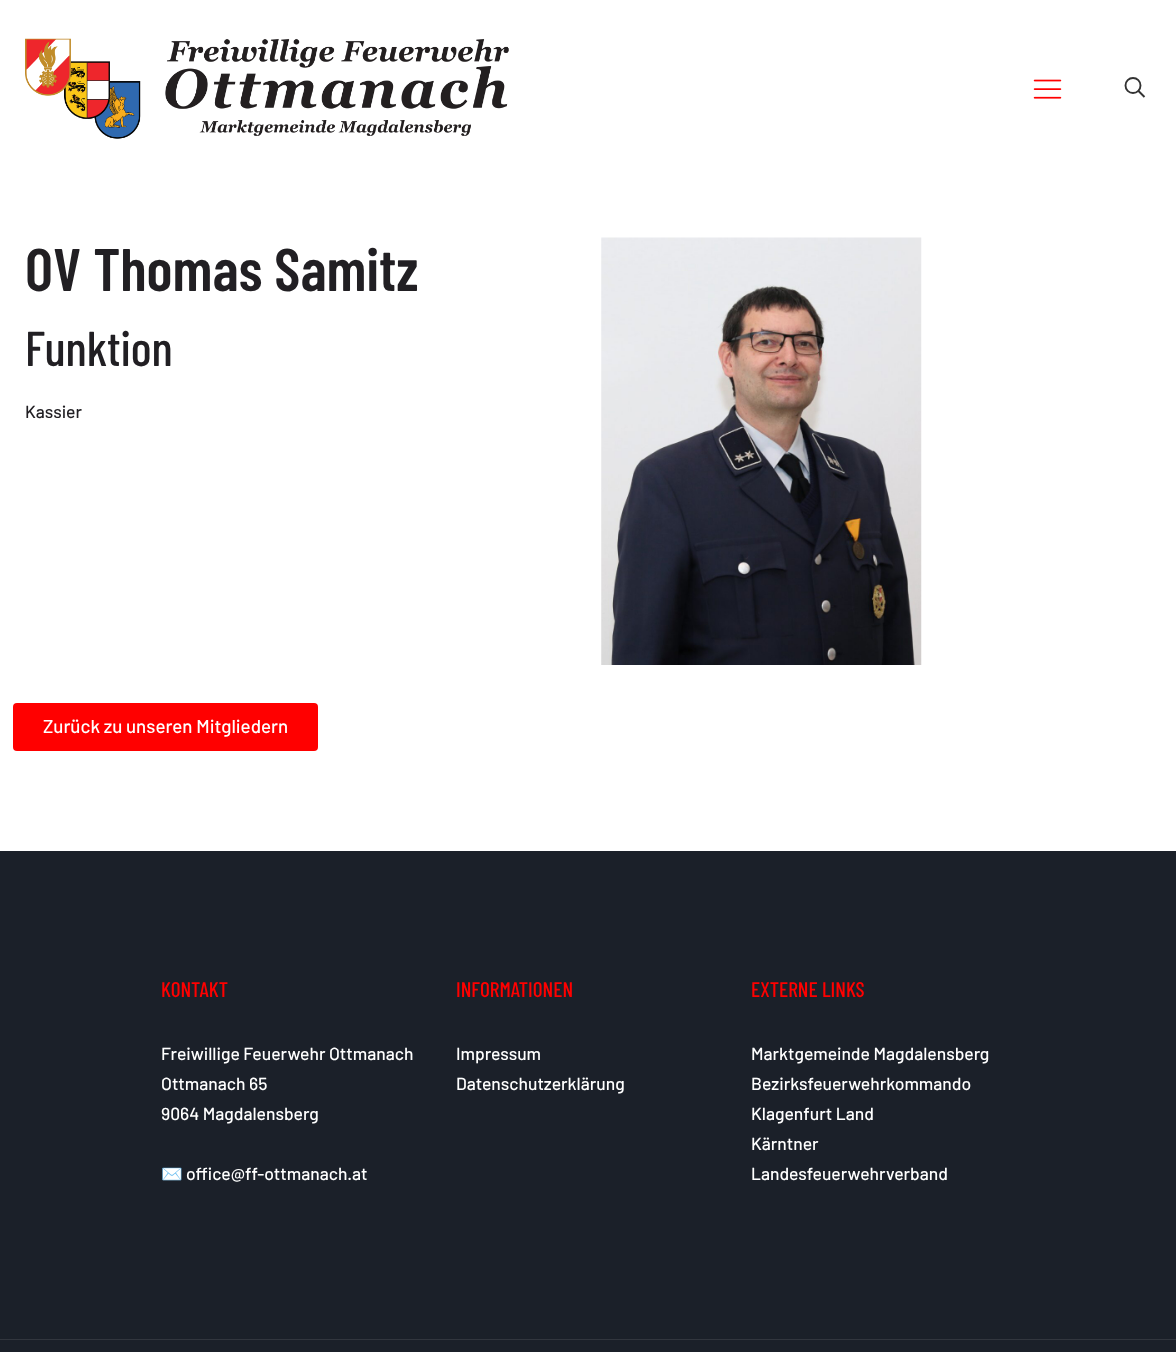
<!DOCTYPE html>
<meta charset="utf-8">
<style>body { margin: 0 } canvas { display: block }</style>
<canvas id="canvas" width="1176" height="1352"></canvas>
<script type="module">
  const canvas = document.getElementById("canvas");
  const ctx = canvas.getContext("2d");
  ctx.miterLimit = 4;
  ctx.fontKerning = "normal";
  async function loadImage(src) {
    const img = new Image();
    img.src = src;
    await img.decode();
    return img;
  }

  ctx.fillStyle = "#ffffff";
  ctx.fillRect(0, 0, 1176, 1352);
  ctx.drawImage(await loadImage("img1.png"), 25, 38, 484, 101);
  ctx.drawImage(await loadImage("img2.png"), 1033, 79, 29, 20);
  ctx.beginPath();
  ctx.arc(1133, 85.5, 7.5, 0, Math.PI * 2);
  ctx.strokeStyle = "#333333";
  ctx.lineWidth = 1.9;
  ctx.stroke();
  ctx.beginPath();
  ctx.moveTo(1138, 90.5);
  ctx.lineTo(1144.5, 97);
  ctx.stroke();
  ctx.font = "600 60px Barlow Condensed";
  ctx.fillStyle = "#211f23";
  ctx.fillText("OV Thomas Samitz", 25, 291);
  ctx.font = "500 49px Barlow Condensed";
  ctx.fillText("Funktion", 25, 366);
  ctx.font = "500 17.5px Barlow";
  ctx.fillText("Kassier", 25, 418);
  ctx.drawImage(await loadImage("img3.png"), 601, 237, 321, 428);
  ctx.fillStyle = "#ff0000";
  ctx.beginPath();
  ctx.roundRect(13, 703, 305, 48, 4);
  ctx.fill();
  ctx.font = "500 18.75px Barlow";
  ctx.fillStyle = "#ffffff";
  ctx.fillText("Zurück zu unseren Mitgliedern", 43, 733);
  ctx.fillStyle = "#1b2029";
  ctx.fillRect(0, 851, 1176, 501);
  ctx.font = "500 21.25px Barlow Condensed";
  ctx.fillStyle = "#ff0000";
  ctx.fillText("KONTAKT", 161, 997);
  ctx.font = "500 17.5px Barlow";
  ctx.fillStyle = "#ffffff";
  ctx.fillText("Freiwillige Feuerwehr Ottmanach", 161, 1060);
  ctx.fillText("Ottmanach 65", 161, 1090);
  ctx.fillText("9064 Magdalensberg", 161, 1120);
  ctx.font = "17.5px Noto Color Emoji";
  ctx.fillText("✉️", 161, 1180);
  ctx.font = "500 17.5px Barlow";
  ctx.fillText("office@ff-ottmanach.at", 186, 1180);
  ctx.font = "500 21.25px Barlow Condensed";
  ctx.fillStyle = "#ff0000";
  ctx.fillText("INFORMATIONEN", 456, 997);
  ctx.font = "500 17.5px Barlow";
  ctx.fillStyle = "#ffffff";
  ctx.fillText("Impressum", 456, 1060);
  ctx.fillText("Datenschutzerklärung", 456, 1090);
  ctx.font = "500 21.25px Barlow Condensed";
  ctx.fillStyle = "#ff0000";
  ctx.fillText("EXTERNE LINKS", 751, 997);
  ctx.font = "500 17.5px Barlow";
  ctx.fillStyle = "#ffffff";
  ctx.fillText("Marktgemeinde Magdalensberg", 751, 1060);
  ctx.fillText("Bezirksfeuerwehrkommando", 751, 1090);
  ctx.fillText("Klagenfurt Land", 751, 1120);
  ctx.fillText("Kärntner", 751, 1150);
  ctx.fillText("Landesfeuerwehrverband", 751, 1180);
  ctx.fillStyle = "#32363e";
  ctx.fillRect(0, 1339, 1176, 1);
</script>
